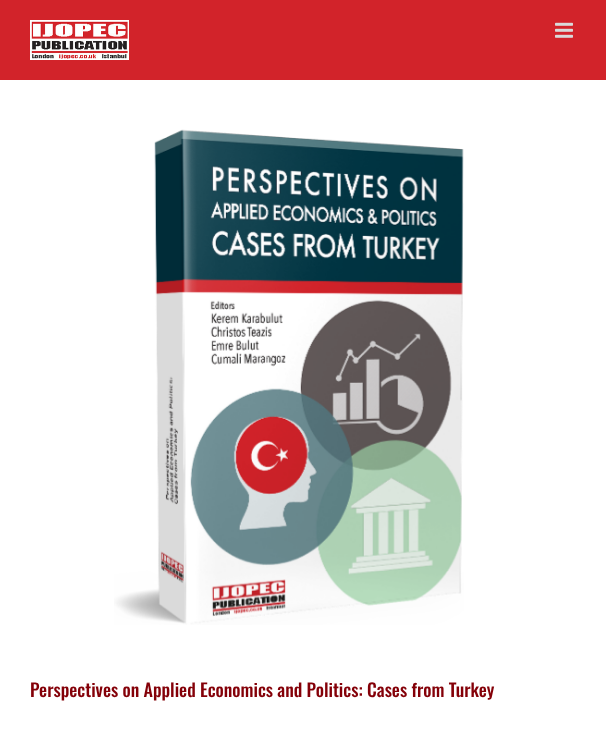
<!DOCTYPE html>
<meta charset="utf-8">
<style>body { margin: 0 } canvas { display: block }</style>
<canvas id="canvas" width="606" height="749"></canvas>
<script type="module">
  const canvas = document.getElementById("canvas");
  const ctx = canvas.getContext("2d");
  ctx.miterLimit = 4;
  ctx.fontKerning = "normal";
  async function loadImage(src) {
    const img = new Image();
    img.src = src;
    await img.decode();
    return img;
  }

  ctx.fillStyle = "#ffffff";
  ctx.fillRect(0, 0, 606, 749);
  ctx.fillStyle = "#d2232a";
  ctx.fillRect(0, 0, 606, 80);
  ctx.drawImage(await loadImage("img1.png"), 30, 20, 99, 40);
  ctx.drawImage(await loadImage("img2.png"), 555, 22, 18, 16);
  ctx.drawImage(await loadImage("img3.png"), 114, 129, 350, 496);
  ctx.font = "500 18px Oswald";
  ctx.fillStyle = "#840008";
  ctx.fillText("Perspectives on Applied Economics and Politics: Cases from Turkey", 30, 697);
</script>
